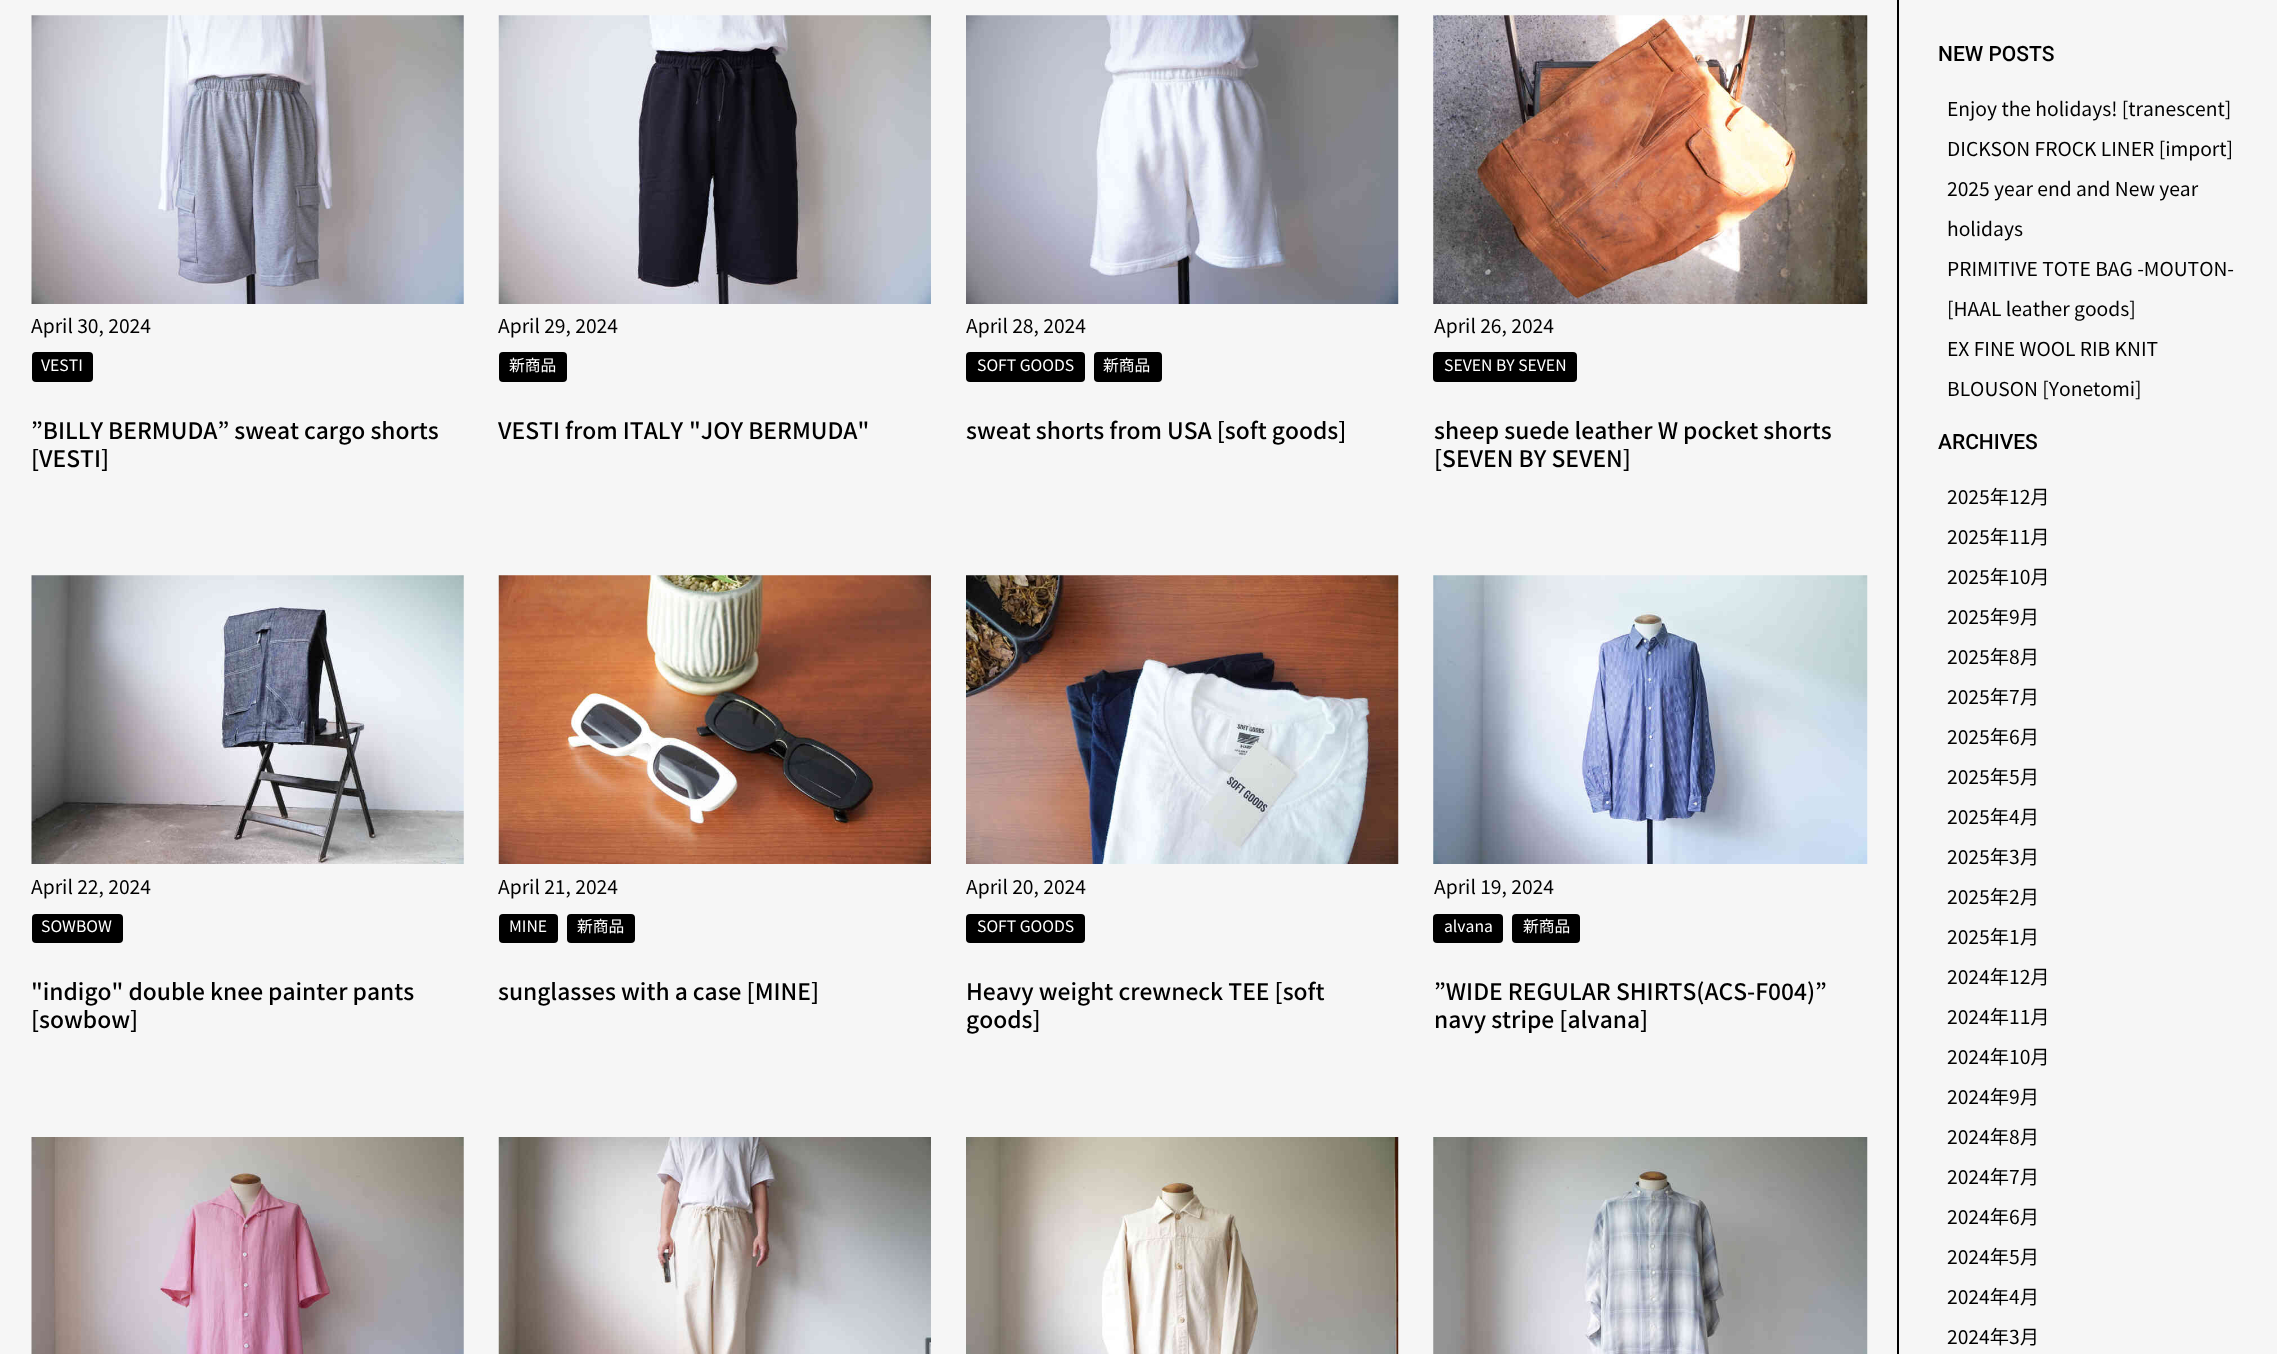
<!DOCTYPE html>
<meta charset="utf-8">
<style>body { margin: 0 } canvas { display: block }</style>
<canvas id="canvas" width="2277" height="1354"></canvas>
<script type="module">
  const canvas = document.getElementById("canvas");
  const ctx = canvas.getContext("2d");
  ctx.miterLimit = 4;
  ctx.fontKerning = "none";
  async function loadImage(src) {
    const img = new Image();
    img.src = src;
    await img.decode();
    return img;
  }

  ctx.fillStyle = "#f6f6f6";
  ctx.fillRect(0, 0, 2277, 1354);
  ctx.fillStyle = "#000000";
  ctx.fillRect(1897, 0, 2, 1354);
  ctx.drawImage(await loadImage("img1.png"), 31, 15, 433, 289);
  ctx.font = "19.25px Noto Sans JP";
  ctx.fillText("April 30, 2024", 31, 333);
  ctx.beginPath();
  ctx.roundRect(32, 352, 61, 30, 4);
  ctx.fill();
  ctx.font = "15.75px Noto Sans JP";
  ctx.fillStyle = "#ffffff";
  ctx.fillText("VESTI", 41, 371);
  ctx.font = "500 22.75px Noto Sans JP";
  ctx.fillStyle = "#000000";
  ctx.fillText("”BILLY BERMUDA” sweat", 31, 439);
  ctx.fillText("cargo shorts", 304, 439);
  ctx.fillText("[VESTI]", 31, 467);
  ctx.drawImage(await loadImage("img2.png"), 498, 15, 433, 289);
  ctx.font = "19.25px Noto Sans JP";
  ctx.fillText("April 29, 2024", 498, 333);
  ctx.beginPath();
  ctx.roundRect(499, 352, 68, 30, 4);
  ctx.fill();
  ctx.font = "15.75px Noto Sans JP";
  ctx.fillStyle = "#ffffff";
  ctx.fillText("新商品", 509, 371);
  ctx.font = "500 22.75px Noto Sans JP";
  ctx.fillStyle = "#000000";
  ctx.fillText("VESTI from ITALY", 498, 439);
  ctx.fillText("\"JOY BERMUDA\"", 689, 439);
  ctx.drawImage(await loadImage("img3.png"), 966, 15, 433, 289);
  ctx.font = "19.25px Noto Sans JP";
  ctx.fillText("April 28, 2024", 966, 333);
  ctx.beginPath();
  ctx.roundRect(966, 352, 119, 30, 4);
  ctx.fill();
  ctx.font = "15.75px Noto Sans JP";
  ctx.fillStyle = "#ffffff";
  ctx.fillText("SOFT GOODS", 977, 371);
  ctx.fillStyle = "#000000";
  ctx.beginPath();
  ctx.roundRect(1094, 352, 68, 30, 4);
  ctx.fill();
  ctx.fillStyle = "#ffffff";
  ctx.fillText("新商品", 1103, 371);
  ctx.font = "500 22.75px Noto Sans JP";
  ctx.fillStyle = "#000000";
  ctx.fillText("sweat shorts from USA [soft goods]", 966, 439);
  ctx.drawImage(await loadImage("img4.png"), 1433, 15, 435, 289);
  ctx.font = "19.25px Noto Sans JP";
  ctx.fillText("April 26, 2024", 1434, 333);
  ctx.beginPath();
  ctx.roundRect(1433, 352, 144, 30, 4);
  ctx.fill();
  ctx.font = "15.75px Noto Sans JP";
  ctx.fillStyle = "#ffffff";
  ctx.fillText("SEVEN BY SEVEN", 1444, 371);
  ctx.font = "500 22.75px Noto Sans JP";
  ctx.fillStyle = "#000000";
  ctx.fillText("sheep suede leather W pocket shorts", 1434, 439);
  ctx.fillText("[SEVEN BY SEVEN]", 1434, 467);
  ctx.drawImage(await loadImage("img5.png"), 31, 575, 433, 289);
  ctx.font = "19.25px Noto Sans JP";
  ctx.fillText("April 22, 2024", 31, 894);
  ctx.beginPath();
  ctx.roundRect(32, 914, 91, 29, 4);
  ctx.fill();
  ctx.font = "15.75px Noto Sans JP";
  ctx.fillStyle = "#ffffff";
  ctx.fillText("SOWBOW", 41, 932);
  ctx.font = "500 22.75px Noto Sans JP";
  ctx.fillStyle = "#000000";
  ctx.fillText("\"indigo\" double knee painter pants", 31, 1000);
  ctx.fillText("[sowbow]", 31, 1028);
  ctx.drawImage(await loadImage("img6.png"), 498, 575, 433, 289);
  ctx.font = "19.25px Noto Sans JP";
  ctx.fillText("April 21, 2024", 498, 894);
  ctx.beginPath();
  ctx.roundRect(499, 914, 59, 29, 4);
  ctx.fill();
  ctx.font = "15.75px Noto Sans JP";
  ctx.fillStyle = "#ffffff";
  ctx.fillText("MINE", 509, 932);
  ctx.fillStyle = "#000000";
  ctx.beginPath();
  ctx.roundRect(567, 914, 68, 29, 4);
  ctx.fill();
  ctx.fillStyle = "#ffffff";
  ctx.fillText("新商品", 577, 932);
  ctx.font = "500 22.75px Noto Sans JP";
  ctx.fillStyle = "#000000";
  ctx.fillText("sunglasses with a case [MINE]", 498, 1000);
  ctx.drawImage(await loadImage("img7.png"), 966, 575, 433, 289);
  ctx.font = "19.25px Noto Sans JP";
  ctx.fillText("April 20, 2024", 966, 894);
  ctx.beginPath();
  ctx.roundRect(966, 914, 119, 29, 4);
  ctx.fill();
  ctx.font = "15.75px Noto Sans JP";
  ctx.fillStyle = "#ffffff";
  ctx.fillText("SOFT GOODS", 977, 932);
  ctx.font = "500 22.75px Noto Sans JP";
  ctx.fillStyle = "#000000";
  ctx.fillText("Heavy weight crewneck TEE [soft", 966, 1000);
  ctx.fillText("goods]", 966, 1028);
  ctx.drawImage(await loadImage("img8.png"), 1433, 575, 435, 289);
  ctx.font = "19.25px Noto Sans JP";
  ctx.fillText("April 19, 2024", 1434, 894);
  ctx.beginPath();
  ctx.roundRect(1433, 914, 70, 29, 4);
  ctx.fill();
  ctx.font = "15.75px Noto Sans JP";
  ctx.fillStyle = "#ffffff";
  ctx.fillText("alvana", 1444, 932);
  ctx.fillStyle = "#000000";
  ctx.beginPath();
  ctx.roundRect(1512, 914, 68, 29, 4);
  ctx.fill();
  ctx.fillStyle = "#ffffff";
  ctx.fillText("新商品", 1523, 932);
  ctx.font = "500 22.75px Noto Sans JP";
  ctx.fillStyle = "#000000";
  ctx.fillText("”WIDE REGULAR SHIRTS(ACS-F004)”", 1434, 1000);
  ctx.fillText("navy stripe [alvana]", 1434, 1028);
  ctx.drawImage(await loadImage("img9.png"), 31, 1137, 433, 217);
  ctx.drawImage(await loadImage("img10.png"), 498, 1137, 433, 217);
  ctx.drawImage(await loadImage("img11.png"), 966, 1137, 433, 217);
  ctx.drawImage(await loadImage("img12.png"), 1433, 1137, 435, 217);
  ctx.font = "500 21px Roboto";
  ctx.fillText("NEW POSTS", 1938, 61);
  ctx.font = "19.25px Noto Sans JP";
  ctx.fillText("Enjoy the holidays! [tranescent]", 1947, 116);
  ctx.fillText("DICKSON FROCK LINER [import]", 1947, 156);
  ctx.fillText("2025 year end and New year", 1947, 196);
  ctx.fillText("holidays", 1947, 236);
  ctx.fillText("PRIMITIVE TOTE BAG -MOUTON-", 1947, 276);
  ctx.fillText("[HAAL leather goods]", 1947, 316);
  ctx.fillText("EX FINE WOOL RIB KNIT", 1947, 356);
  ctx.fillText("BLOUSON [Yonetomi]", 1947, 396);
  ctx.font = "500 21px Roboto";
  ctx.fillText("ARCHIVES", 1938, 449);
  ctx.font = "19.25px Noto Sans JP";
  ctx.fillText("2025年12月", 1947, 504);
  ctx.fillText("2025年11月", 1947, 544);
  ctx.fillText("2025年10月", 1947, 584);
  ctx.fillText("2025年9月", 1947, 624);
  ctx.fillText("2025年8月", 1947, 664);
  ctx.fillText("2025年7月", 1947, 704);
  ctx.fillText("2025年6月", 1947, 744);
  ctx.fillText("2025年5月", 1947, 784);
  ctx.fillText("2025年4月", 1947, 824);
  ctx.fillText("2025年3月", 1947, 864);
  ctx.fillText("2025年2月", 1947, 904);
  ctx.fillText("2025年1月", 1947, 944);
  ctx.fillText("2024年12月", 1947, 984);
  ctx.fillText("2024年11月", 1947, 1024);
  ctx.fillText("2024年10月", 1947, 1064);
  ctx.fillText("2024年9月", 1947, 1104);
  ctx.fillText("2024年8月", 1947, 1144);
  ctx.fillText("2024年7月", 1947, 1184);
  ctx.fillText("2024年6月", 1947, 1224);
  ctx.fillText("2024年5月", 1947, 1264);
  ctx.fillText("2024年4月", 1947, 1304);
  ctx.fillText("2024年3月", 1947, 1344);
</script>
